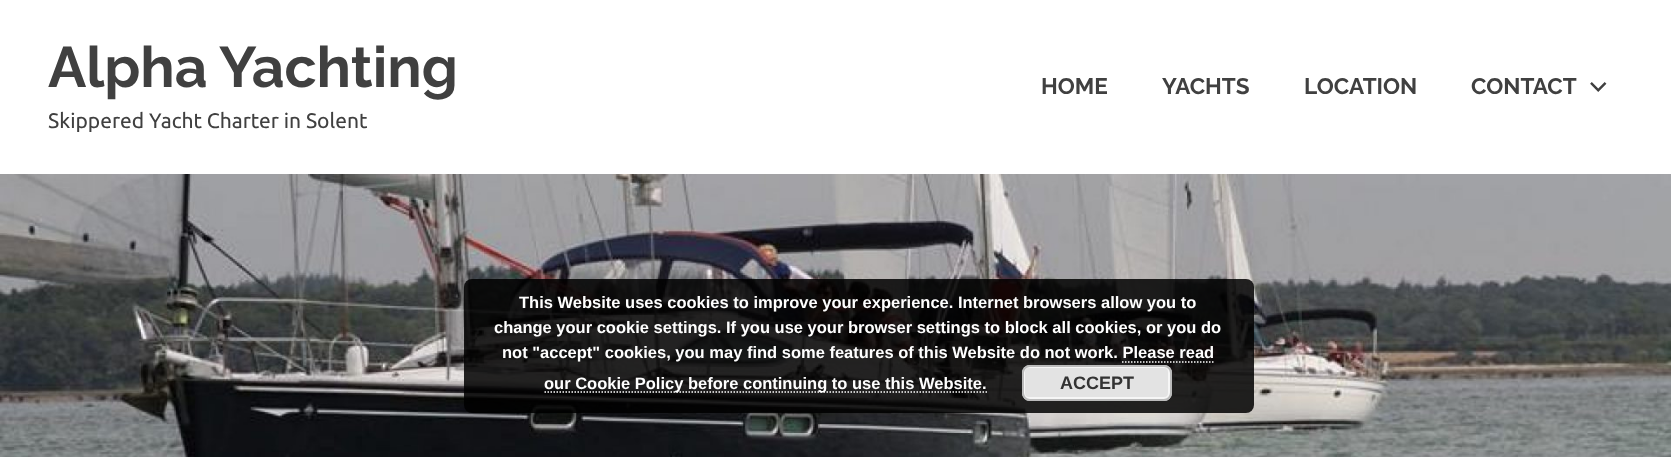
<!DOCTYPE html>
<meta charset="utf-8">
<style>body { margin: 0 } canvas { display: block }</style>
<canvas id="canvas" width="1671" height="457"></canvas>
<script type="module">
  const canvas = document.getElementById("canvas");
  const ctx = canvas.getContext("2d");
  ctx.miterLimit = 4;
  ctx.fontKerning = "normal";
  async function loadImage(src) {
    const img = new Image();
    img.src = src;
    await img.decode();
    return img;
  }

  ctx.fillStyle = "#ffffff";
  ctx.fillRect(0, 0, 1671, 457);
  ctx.font = "100 57px Raleway";
  ctx.fillStyle = "#404040";
  ctx.fillText("Alpha Yachting", 48, 87);
  ctx.font = "21px Ubuntu";
  ctx.fillText("Skippered Yacht Charter in Solent", 48, 128);
  ctx.font = "100 22.5px Raleway";
  ctx.fillText("HOME", 1041, 94);
  ctx.fillText("YACHTS", 1162, 94);
  ctx.fillText("LOCATION", 1304, 94);
  ctx.fillText("CONTACT", 1471, 94);
  ctx.drawImage(await loadImage("img1.png"), 1590, 82, 17, 10);
  ctx.drawImage(await loadImage("img2.png"), 0, 174, 1671, 283);
  ctx.fillStyle = "rgba(0, 0, 0, 0.85)";
  ctx.beginPath();
  ctx.roundRect(464, 279, 790, 134, 8);
  ctx.fill();
  ctx.font = "bold 16.5px Liberation Sans";
  ctx.fillStyle = "#ffffff";
  ctx.fillText("This Website uses cookies to improve your experience. Internet browsers allow you to", 519, 308);
  ctx.fillText("change your cookie settings. If you use your browser settings to block all cookies, or you do", 494, 333);
  ctx.fillText("not \"accept\" cookies, you may find some features of this Website do not work. Please read", 502, 358);
  ctx.beginPath();
  ctx.moveTo(544.5, 392);
  ctx.lineTo(987, 392);
  ctx.strokeStyle = "#ffffff";
  ctx.lineWidth = 1.5;
  ctx.setLineDash([1.5, 1.5]);
  ctx.stroke();
  ctx.fillText("our Cookie Policy before continuing to use this Website.", 544, 389);
  ctx.beginPath();
  ctx.moveTo(1122, 362);
  ctx.lineTo(1213.5, 362);
  ctx.stroke();
  ctx.fillStyle = "#e3e3e3";
  ctx.beginPath();
  ctx.roundRect(1022, 365, 150, 36, 8);
  ctx.fill();
  ctx.beginPath();
  ctx.roundRect(1024, 367, 145, 31, 5);
  ctx.strokeStyle = "#f6f6f6";
  ctx.lineWidth = 2;
  ctx.setLineDash([]);
  ctx.stroke();
  ctx.beginPath();
  ctx.roundRect(1023, 366, 148, 34, 7);
  ctx.strokeStyle = "#bbbbbb";
  ctx.stroke();
  ctx.font = "bold 18px Liberation Sans";
  ctx.fillStyle = "#333333";
  ctx.fillText("ACCEPT", 1060, 389);
</script>
